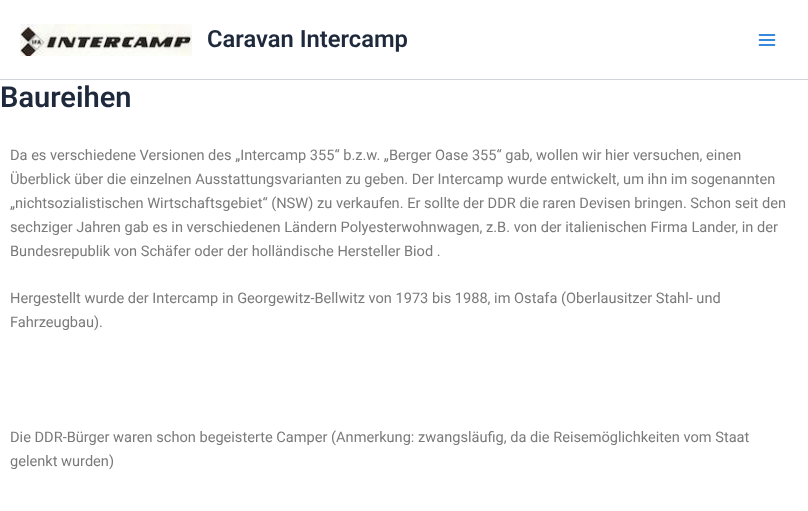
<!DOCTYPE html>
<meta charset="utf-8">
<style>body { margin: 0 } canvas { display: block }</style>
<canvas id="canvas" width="808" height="511"></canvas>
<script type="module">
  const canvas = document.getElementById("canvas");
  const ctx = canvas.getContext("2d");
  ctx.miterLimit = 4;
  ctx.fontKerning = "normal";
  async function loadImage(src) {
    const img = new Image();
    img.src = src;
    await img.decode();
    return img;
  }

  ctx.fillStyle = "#ffffff";
  ctx.fillRect(0, 0, 808, 511);
  ctx.fillStyle = "#d1d5db";
  ctx.fillRect(0, 79, 808, 1);
  ctx.drawImage(await loadImage("img1.png"), 20, 24, 172, 32);
  ctx.font = "600 23.75px Roboto";
  ctx.fillStyle = "#1e293b";
  ctx.fillText("Caravan Intercamp", 207, 47);
  ctx.drawImage(await loadImage("img2.png"), 758, 34, 18, 12);
  ctx.font = "600 29px Roboto";
  ctx.fillText("Baureihen", 0, 107);
  ctx.font = "14.6px Roboto";
  ctx.fillStyle = "#7a7a7a";
  ctx.fillText("Da es verschiedene Versionen des „Intercamp 355“ b.z.w. „Berger Oase 355“ gab, wollen wir hier versuchen, einen", 10, 160);
  ctx.fillText("Überblick über die einzelnen Ausstattungsvarianten zu geben. Der Intercamp wurde entwickelt, um ihn im sogenannten", 10, 184);
  ctx.fillText("„nichtsozialistischen Wirtschaftsgebiet“ (NSW) zu verkaufen. Er sollte der DDR die raren Devisen bringen. Schon seit den", 10, 208);
  ctx.fillText("sechziger Jahren gab es in verschiedenen Ländern Polyesterwohnwagen, z.B. von der italienischen Firma Lander, in der", 10, 232);
  ctx.fillText("Bundesrepublik von Schäfer oder der holländische Hersteller Biod .", 10, 256);
  ctx.fillText("Hergestellt wurde der Intercamp in Georgewitz-Bellwitz von 1973 bis 1988, im Ostafa (Oberlausitzer Stahl- und", 10, 303);
  ctx.fillText("Fahrzeugbau).", 10, 327);
  ctx.fillText("Die DDR-Bürger waren schon begeisterte Camper (Anmerkung: zwangsläufig, da die Reisemöglichkeiten vom Staat", 10, 442);
  ctx.fillText("gelenkt wurden)", 10, 466);
</script>
